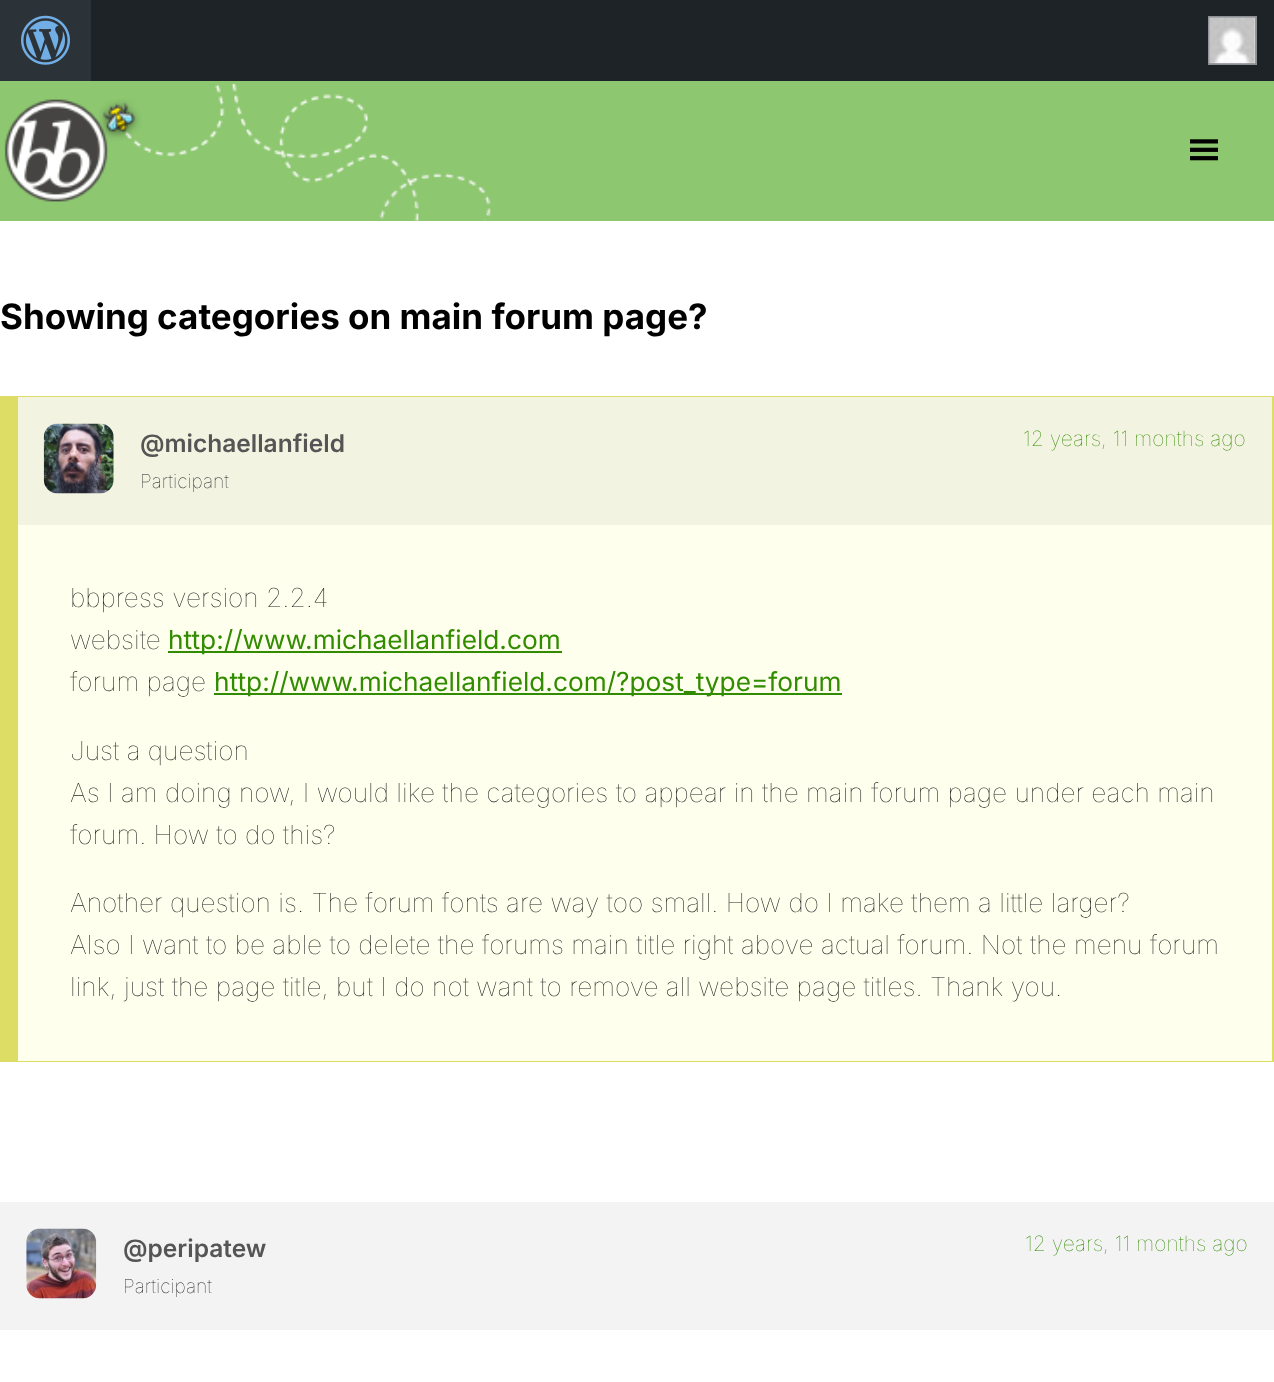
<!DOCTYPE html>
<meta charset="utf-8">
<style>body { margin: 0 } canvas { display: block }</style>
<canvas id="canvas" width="1274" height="1382"></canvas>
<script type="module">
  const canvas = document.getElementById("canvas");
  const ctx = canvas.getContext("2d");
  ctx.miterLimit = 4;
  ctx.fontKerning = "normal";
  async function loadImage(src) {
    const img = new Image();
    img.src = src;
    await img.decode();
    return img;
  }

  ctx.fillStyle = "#ffffff";
  ctx.fillRect(0, 0, 1274, 1382);
  ctx.fillStyle = "#1d2327";
  ctx.fillRect(91, 0, 1183, 81);
  ctx.fillStyle = "#2c3338";
  ctx.fillRect(0, 0, 91, 81);
  ctx.drawImage(await loadImage("img1.png"), 21, 15, 49, 50);
  ctx.fillStyle = "#f0f0f1";
  ctx.beginPath();
  ctx.rect(1209, 17, 47, 47);
  ctx.fill();
  ctx.strokeStyle = "#8c8f94";
  ctx.lineWidth = 2;
  ctx.stroke();
  ctx.drawImage(await loadImage("img2.png"), 1208, 17, 48, 47);
  ctx.fillStyle = "#8dc770";
  ctx.fillRect(0, 81, 1274, 140);
  ctx.drawImage(await loadImage("img3.png"), 99, 83, 392, 138);
  ctx.drawImage(await loadImage("img4.png"), 4, 99, 110, 103);
  ctx.drawImage(await loadImage("img5.png"), 1190, 139, 28, 22);
  ctx.font = "bold 35px Inter";
  ctx.fillStyle = "#000000";
  ctx.fillText("Showing categories on main forum page?", 0, 329);
  ctx.fillStyle = "#dddd66";
  ctx.fillRect(18, 396, 1256, 1);
  ctx.fillRect(1272, 396, 2, 666);
  ctx.fillRect(18, 1061, 1256, 1);
  ctx.fillRect(0, 396, 18, 666);
  ctx.fillStyle = "#ffffee";
  ctx.fillRect(18, 525, 1254, 536);
  ctx.fillStyle = "#f3f3e2";
  ctx.fillRect(18, 397, 1254, 128);
  ctx.drawImage(await loadImage("img6.png"), 43, 423, 71, 71);
  ctx.font = "600 24.5px Inter";
  ctx.fillStyle = "#555555";
  ctx.fillText("@michaellanfield", 140, 452);
  ctx.font = "100 19.25px Inter";
  ctx.fillStyle = "#222222";
  ctx.fillText("Participant", 140, 488);
  ctx.font = "100 21px Inter";
  ctx.fillStyle = "#328c00";
  ctx.fillText("12 years, 11 months ago", 1023, 446);
  ctx.font = "100 26.25px Inter";
  ctx.fillStyle = "#222222";
  ctx.fillText("bbpress version 2.2.4", 70, 607);
  ctx.fillText("website", 70, 649);
  ctx.fillStyle = "#328c00";
  ctx.fillRect(168, 651, 394, 2);
  ctx.font = "26.25px Inter";
  ctx.fillText("http://www.michaellanfield.com", 168, 649);
  ctx.font = "100 26.25px Inter";
  ctx.fillStyle = "#222222";
  ctx.fillText("forum page", 70, 691);
  ctx.fillStyle = "#328c00";
  ctx.fillRect(214, 693, 628, 2);
  ctx.font = "26.25px Inter";
  ctx.fillText("http://www.michaellanfield.com/?post_type=forum", 214, 691);
  ctx.font = "100 26.25px Inter";
  ctx.fillStyle = "#222222";
  ctx.fillText("Just a question", 70, 760);
  ctx.fillText("As I am doing now, I would like the categories to appear in the main forum page under each main", 70, 802);
  ctx.fillText("forum. How to do this?", 70, 844);
  ctx.fillText("Another question is. The forum fonts are way too small. How do I make them a little larger?", 70, 912);
  ctx.fillText("Also I want to be able to delete the forums main title right above actual forum. Not the menu forum", 70, 954);
  ctx.fillText("link, just the page title, but I do not want to remove all website page titles. Thank you.", 70, 996);
  ctx.fillStyle = "#f3f3f3";
  ctx.fillRect(0, 1202, 1274, 128);
  ctx.drawImage(await loadImage("img7.png"), 26, 1228, 71, 71);
  ctx.font = "600 24.5px Inter";
  ctx.fillStyle = "#555555";
  ctx.fillText("@peripatew", 123, 1257);
  ctx.font = "100 19.25px Inter";
  ctx.fillStyle = "#222222";
  ctx.fillText("Participant", 123, 1293);
  ctx.font = "100 21px Inter";
  ctx.fillStyle = "#328c00";
  ctx.fillText("12 years, 11 months ago", 1025, 1251);
</script>
